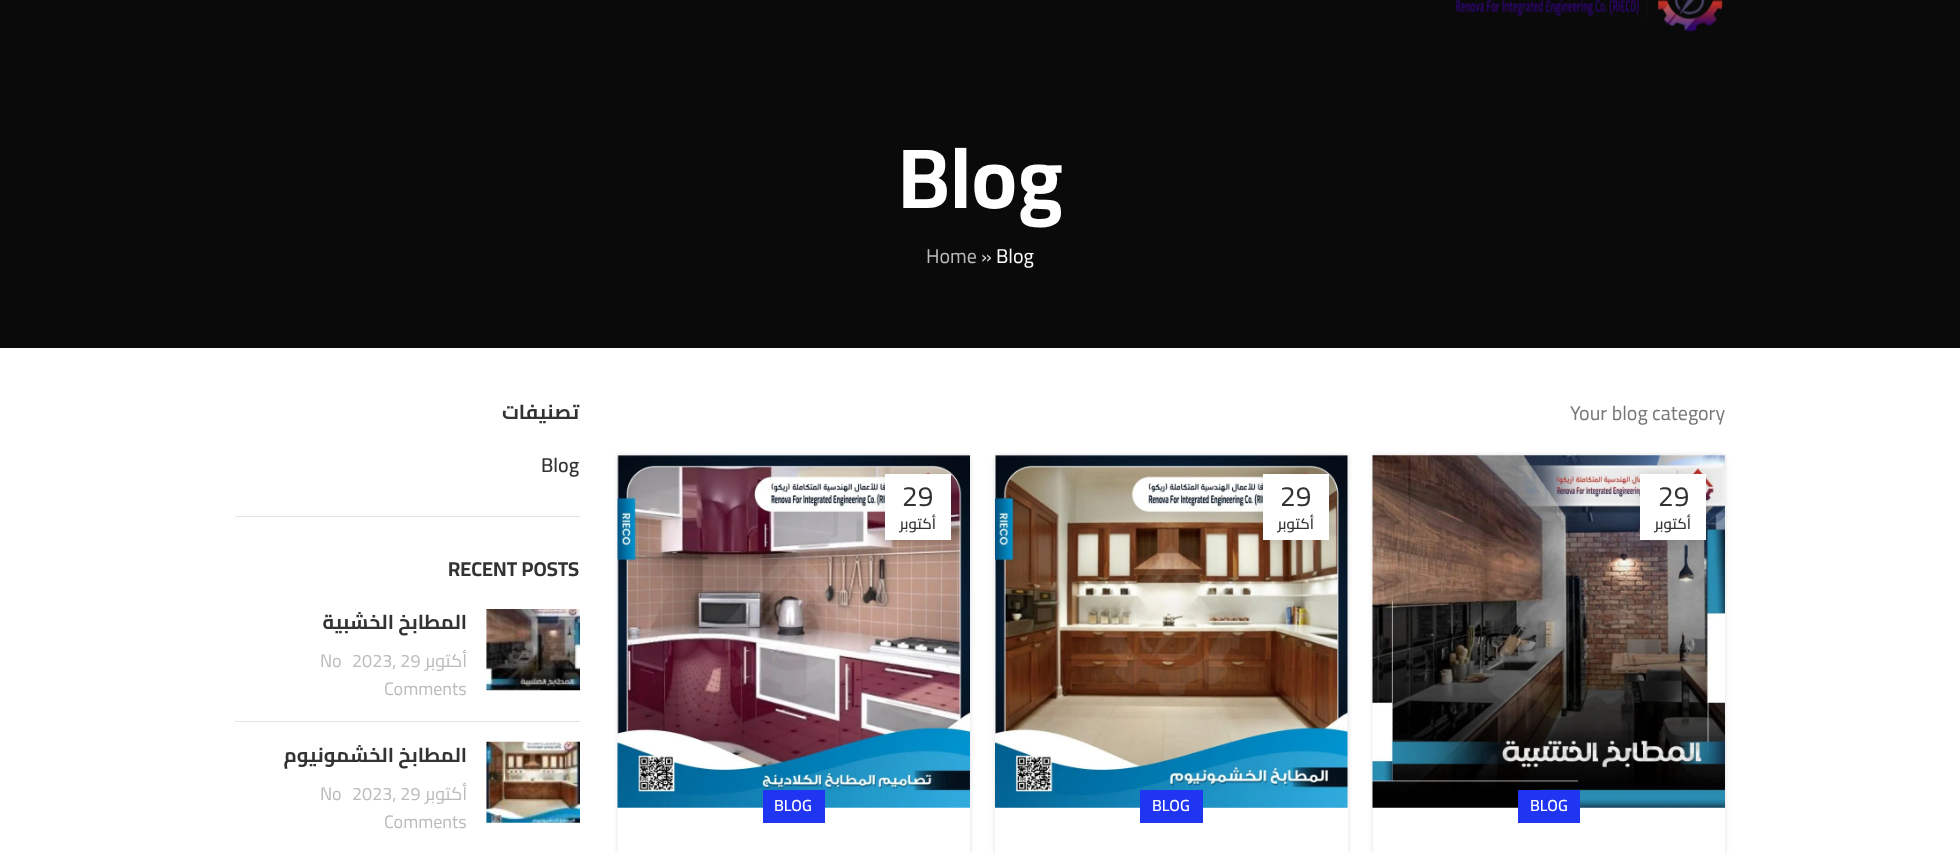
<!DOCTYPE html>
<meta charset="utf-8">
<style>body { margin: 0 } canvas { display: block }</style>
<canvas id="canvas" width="1960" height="852"></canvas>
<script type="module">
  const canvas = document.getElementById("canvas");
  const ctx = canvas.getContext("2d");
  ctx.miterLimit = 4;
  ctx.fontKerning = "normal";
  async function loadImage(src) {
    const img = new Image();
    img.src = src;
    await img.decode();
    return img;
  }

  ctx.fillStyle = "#ffffff";
  ctx.fillRect(0, 0, 1960, 852);
  ctx.fillStyle = "#0a0a0a";
  ctx.fillRect(0, 0, 1960, 348);
  ctx.drawImage(await loadImage("img1.png"), 1455, 0, 268, 32);
  ctx.font = "bold 85px Cairo";
  ctx.fillStyle = "#ffffff";
  ctx.fillText("Blog", 898, 208);
  ctx.font = "20px Cairo";
  ctx.fillStyle = "#bbbbbb";
  ctx.fillText("Home", 926, 263);
  ctx.fillStyle = "#cecece";
  ctx.fillText("»", 981, 263);
  ctx.fillStyle = "#ffffff";
  ctx.fillText("Blog", 996, 263);
  ctx.fillStyle = "#e4e4e4";
  ctx.fillRect(235, 516, 345, 1);
  ctx.direction = "rtl";
  ctx.font = "bold 20px Cairo";
  ctx.fillStyle = "#333333";
  ctx.fillText("تصنيفات", 579, 419);
  ctx.direction = "ltr";
  ctx.font = "600 20px Cairo";
  ctx.fillText("Blog", 541, 472);
  ctx.font = "bold 20px Cairo";
  ctx.fillText("RECENT POSTS", 448, 576);
  ctx.fillStyle = "#e4e4e4";
  ctx.fillRect(235, 721, 345, 1);
  ctx.direction = "rtl";
  ctx.fillStyle = "#333333";
  ctx.fillText("المطابخ الخشبية", 467, 629);
  ctx.direction = "ltr";
  ctx.font = "18px Cairo";
  ctx.fillStyle = "#bbbbbb";
  ctx.fillText("No", 320, 667);
  ctx.fillText("2023, 29", 352, 667);
  ctx.direction = "rtl";
  ctx.fillText("أكتوبر", 467, 667);
  ctx.direction = "ltr";
  ctx.fillText("Comments", 384, 695);
  ctx.drawImage(await loadImage("img2.png"), 486, 609, 94, 82);
  ctx.direction = "rtl";
  ctx.font = "bold 20px Cairo";
  ctx.fillStyle = "#333333";
  ctx.fillText("المطابخ الخشمونيوم", 467, 762);
  ctx.direction = "ltr";
  ctx.font = "18px Cairo";
  ctx.fillStyle = "#bbbbbb";
  ctx.fillText("No", 320, 800);
  ctx.fillText("2023, 29", 352, 800);
  ctx.direction = "rtl";
  ctx.fillText("أكتوبر", 467, 800);
  ctx.direction = "ltr";
  ctx.fillText("Comments", 384, 828);
  ctx.drawImage(await loadImage("img3.png"), 486, 741, 94, 82);
  ctx.font = "20px Cairo";
  ctx.fillStyle = "#777777";
  ctx.fillText("Your blog category", 1570, 420);
  ctx.save();
  ctx.beginPath();
  ctx.moveTo(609, 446);
  ctx.lineTo(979, 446);
  ctx.lineTo(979, 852);
  ctx.lineTo(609, 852);
  ctx.closePath();
  ctx.moveTo(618, 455);
  ctx.lineTo(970, 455);
  ctx.lineTo(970, 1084);
  ctx.lineTo(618, 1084);
  ctx.closePath();
  ctx.clip("evenodd");
  ctx.fillStyle = "rgba(0, 0, 0, 0.12)";
  ctx.filter = "blur(2.5px)";
  ctx.beginPath();
  ctx.rect(618, 455, 352, 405);
  ctx.fill();
  ctx.filter = "none";
  ctx.restore();
  ctx.drawImage(await loadImage("img4.png"), 617, 455, 353, 353);
  ctx.fillStyle = "rgba(0, 0, 0, 0.1)";
  ctx.filter = "blur(5.5px)";
  ctx.beginPath();
  ctx.rect(885, 474, 66, 66);
  ctx.fill();
  ctx.filter = "none";
  ctx.fillStyle = "#ffffff";
  ctx.fillRect(885, 474, 66, 66);
  ctx.font = "28px Cairo";
  ctx.fillStyle = "#333333";
  ctx.fillText("29", 902, 506);
  ctx.direction = "rtl";
  ctx.font = "600 15px Cairo";
  ctx.fillText("أكتوبر", 936, 529);
  ctx.fillStyle = "#2035f2";
  ctx.fillRect(763, 790, 62, 33);
  ctx.direction = "ltr";
  ctx.font = "600 16px Cairo";
  ctx.fillStyle = "#ffffff";
  ctx.fillText("BLOG", 774, 811);
  ctx.fillStyle = "rgba(0, 0, 0, 0.12)";
  ctx.filter = "blur(2.5px)";
  ctx.beginPath();
  ctx.rect(995, 455, 353, 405);
  ctx.fill();
  ctx.filter = "none";
  ctx.drawImage(await loadImage("img5.png"), 995, 455, 353, 353);
  ctx.fillStyle = "rgba(0, 0, 0, 0.1)";
  ctx.filter = "blur(5.5px)";
  ctx.beginPath();
  ctx.rect(1263, 474, 66, 66);
  ctx.fill();
  ctx.filter = "none";
  ctx.fillStyle = "#ffffff";
  ctx.fillRect(1263, 474, 66, 66);
  ctx.font = "28px Cairo";
  ctx.fillStyle = "#333333";
  ctx.fillText("29", 1280, 506);
  ctx.direction = "rtl";
  ctx.font = "600 15px Cairo";
  ctx.fillText("أكتوبر", 1314, 529);
  ctx.fillStyle = "#ffffff";
  ctx.fillRect(995, 808, 353, 44);
  ctx.fillStyle = "#2035f2";
  ctx.fillRect(1140, 790, 63, 33);
  ctx.direction = "ltr";
  ctx.font = "600 16px Cairo";
  ctx.fillStyle = "#ffffff";
  ctx.fillText("BLOG", 1152, 811);
  ctx.save();
  ctx.beginPath();
  ctx.moveTo(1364, 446);
  ctx.lineTo(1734, 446);
  ctx.lineTo(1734, 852);
  ctx.lineTo(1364, 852);
  ctx.closePath();
  ctx.moveTo(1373, 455);
  ctx.lineTo(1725, 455);
  ctx.lineTo(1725, 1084);
  ctx.lineTo(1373, 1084);
  ctx.closePath();
  ctx.clip("evenodd");
  ctx.fillStyle = "rgba(0, 0, 0, 0.12)";
  ctx.filter = "blur(2.5px)";
  ctx.beginPath();
  ctx.rect(1373, 455, 352, 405);
  ctx.fill();
  ctx.filter = "none";
  ctx.restore();
  ctx.drawImage(await loadImage("img6.png"), 1372, 455, 353, 353);
  ctx.fillStyle = "rgba(0, 0, 0, 0.1)";
  ctx.filter = "blur(5.5px)";
  ctx.beginPath();
  ctx.rect(1640, 474, 66, 66);
  ctx.fill();
  ctx.filter = "none";
  ctx.fillStyle = "#ffffff";
  ctx.fillRect(1640, 474, 66, 66);
  ctx.font = "28px Cairo";
  ctx.fillStyle = "#333333";
  ctx.fillText("29", 1658, 506);
  ctx.direction = "rtl";
  ctx.font = "600 15px Cairo";
  ctx.fillText("أكتوبر", 1691, 529);
  ctx.fillStyle = "#2035f2";
  ctx.fillRect(1518, 790, 62, 33);
  ctx.direction = "ltr";
  ctx.font = "600 16px Cairo";
  ctx.fillStyle = "#ffffff";
  ctx.fillText("BLOG", 1530, 811);
</script>
